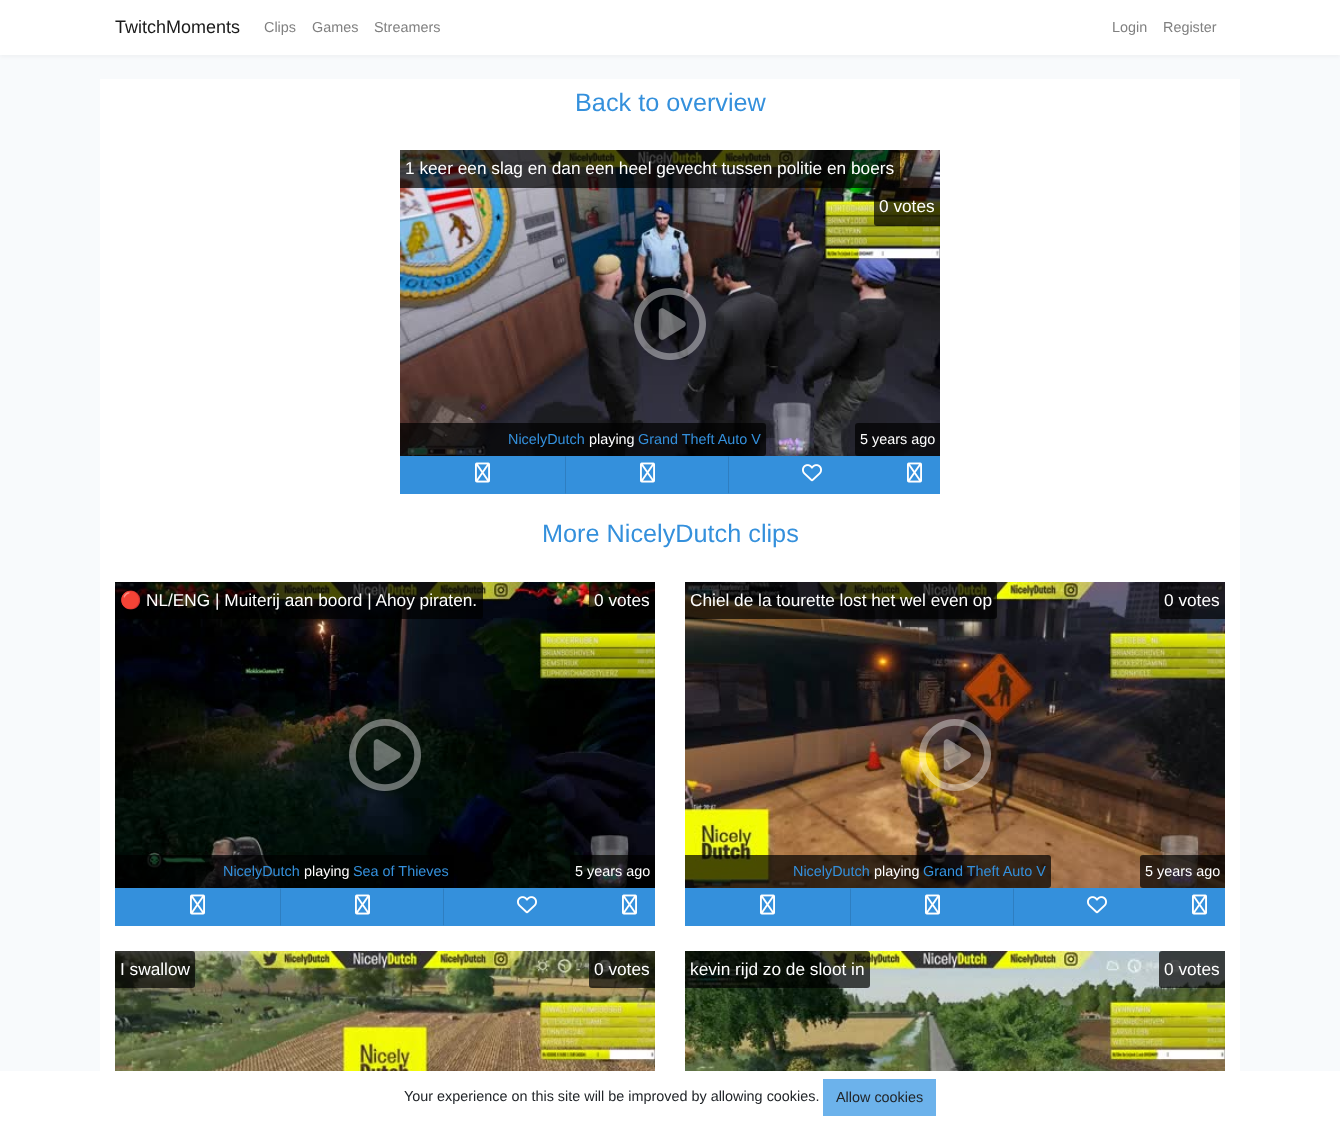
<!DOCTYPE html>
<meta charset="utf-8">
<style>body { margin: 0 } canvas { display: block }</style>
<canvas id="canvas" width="1340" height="1124"></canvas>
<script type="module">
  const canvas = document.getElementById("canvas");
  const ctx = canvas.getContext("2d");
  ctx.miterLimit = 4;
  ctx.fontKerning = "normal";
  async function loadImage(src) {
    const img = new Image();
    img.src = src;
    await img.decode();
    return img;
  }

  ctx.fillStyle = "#f8fafc";
  ctx.fillRect(0, 0, 1340, 1124);
  ctx.fillStyle = "rgba(0, 0, 0, 0.04)";
  ctx.filter = "blur(2px)";
  ctx.beginPath();
  ctx.rect(0, 2, 1340, 55);
  ctx.fill();
  ctx.filter = "none";
  ctx.fillStyle = "#ffffff";
  ctx.fillRect(0, 0, 1340, 55);
  ctx.font = "18px Liberation Sans";
  ctx.fillStyle = "#1a1a1a";
  ctx.fillText("TwitchMoments", 115, 33);
  ctx.font = "14.4px Liberation Sans";
  ctx.fillStyle = "#808080";
  ctx.fillText("Clips", 264, 32);
  ctx.fillText("Games", 312, 32);
  ctx.fillText("Streamers", 374, 32);
  ctx.fillText("Login", 1112, 32);
  ctx.fillText("Register", 1163, 32);
  ctx.fillStyle = "#ffffff";
  ctx.fillRect(100, 79, 1140, 992);
  ctx.font = "25.25px Liberation Sans";
  ctx.fillStyle = "#3490dc";
  ctx.fillText("Back to overview", 575, 111);
  ctx.drawImage(await loadImage("img1.png"), 400, 150, 540, 306);
  ctx.fillStyle = "rgba(0, 0, 0, 0.7)";
  ctx.beginPath();
  ctx.roundRect(400, 150, 500, 38, [0, 3, 3, 0]);
  ctx.fill();
  ctx.font = "17.25px Liberation Sans";
  ctx.fillStyle = "#ffffff";
  ctx.fillText("1 keer een slag en dan een heel gevecht tussen politie en boers", 405, 174);
  ctx.fillStyle = "rgba(0, 0, 0, 0.7)";
  ctx.beginPath();
  ctx.roundRect(874, 188, 66, 38, [3, 0, 0, 3]);
  ctx.fill();
  ctx.fillStyle = "#ffffff";
  ctx.fillText("0 votes", 879, 212);
  ctx.drawImage(await loadImage("img2.png"), 634, 288, 72, 72);
  ctx.fillStyle = "rgba(0, 0, 0, 0.7)";
  ctx.beginPath();
  ctx.roundRect(400, 423, 366, 33, [0, 3, 3, 0]);
  ctx.fill();
  ctx.font = "14.4px Liberation Sans";
  ctx.fillStyle = "#3490dc";
  ctx.fillText("NicelyDutch", 508, 444);
  ctx.fillStyle = "#ffffff";
  ctx.fillText("playing", 589, 444);
  ctx.fillStyle = "#3490dc";
  ctx.fillText("Grand Theft Auto V", 638, 444);
  ctx.fillStyle = "rgba(0, 0, 0, 0.7)";
  ctx.beginPath();
  ctx.roundRect(855, 423, 85, 33, [3, 0, 0, 3]);
  ctx.fill();
  ctx.fillStyle = "#ffffff";
  ctx.fillText("5 years ago", 860, 444);
  ctx.fillStyle = "#3490dc";
  ctx.fillRect(400, 456, 540, 38);
  ctx.drawImage(await loadImage("img3.png"), 475, 462, 15, 21);
  ctx.fillStyle = "#2e7ec1";
  ctx.beginPath();
  ctx.moveTo(729, 456);
  ctx.lineTo(729, 494);
  ctx.lineTo(728, 493);
  ctx.lineTo(728, 457);
  ctx.closePath();
  ctx.fill();
  ctx.fillStyle = "#3490dc";
  ctx.beginPath();
  ctx.moveTo(729, 494);
  ctx.lineTo(565, 494);
  ctx.lineTo(566, 493);
  ctx.lineTo(728, 493);
  ctx.closePath();
  ctx.fill();
  ctx.fillStyle = "#2e7ec1";
  ctx.beginPath();
  ctx.moveTo(565, 494);
  ctx.lineTo(565, 456);
  ctx.lineTo(566, 457);
  ctx.lineTo(566, 493);
  ctx.closePath();
  ctx.fill();
  ctx.drawImage(await loadImage("img3.png"), 640, 462, 15, 21);
  ctx.drawImage(await loadImage("img4.png"), 802, 464, 20, 18);
  ctx.drawImage(await loadImage("img3.png"), 907, 462, 15, 21);
  ctx.font = "25.25px Liberation Sans";
  ctx.fillStyle = "#3490dc";
  ctx.fillText("More NicelyDutch clips", 542, 542);
  ctx.drawImage(await loadImage("img5.png"), 115, 582, 540, 306);
  ctx.fillStyle = "rgba(0, 0, 0, 0.7)";
  ctx.beginPath();
  ctx.roundRect(115, 582, 368, 37, [0, 3, 3, 0]);
  ctx.fill();
  ctx.font = "17.25px Noto Color Emoji";
  ctx.fillStyle = "#ffffff";
  ctx.fillText("🔴", 120, 606);
  ctx.font = "17.25px Liberation Sans";
  ctx.fillText("NL/ENG | Muiterij aan boord | Ahoy piraten.", 146, 606);
  ctx.fillStyle = "rgba(0, 0, 0, 0.7)";
  ctx.beginPath();
  ctx.roundRect(589, 582, 66, 37, [3, 0, 0, 3]);
  ctx.fill();
  ctx.fillStyle = "#ffffff";
  ctx.fillText("0 votes", 594, 606);
  ctx.drawImage(await loadImage("img6.png"), 349, 719, 72, 72);
  ctx.fillStyle = "rgba(0, 0, 0, 0.7)";
  ctx.beginPath();
  ctx.roundRect(115, 855, 339, 33, [0, 3, 3, 0]);
  ctx.fill();
  ctx.font = "14.4px Liberation Sans";
  ctx.fillStyle = "#3490dc";
  ctx.fillText("NicelyDutch", 223, 876);
  ctx.fillStyle = "#ffffff";
  ctx.fillText("playing", 304, 876);
  ctx.fillStyle = "#3490dc";
  ctx.fillText("Sea of Thieves", 353, 876);
  ctx.fillStyle = "rgba(0, 0, 0, 0.7)";
  ctx.beginPath();
  ctx.roundRect(570, 855, 85, 33, [3, 0, 0, 3]);
  ctx.fill();
  ctx.fillStyle = "#ffffff";
  ctx.fillText("5 years ago", 575, 876);
  ctx.fillStyle = "#3490dc";
  ctx.fillRect(115, 888, 540, 38);
  ctx.drawImage(await loadImage("img3.png"), 190, 894, 15, 21);
  ctx.fillStyle = "#2e7ec1";
  ctx.beginPath();
  ctx.moveTo(444, 888);
  ctx.lineTo(444, 926);
  ctx.lineTo(443, 925);
  ctx.lineTo(443, 889);
  ctx.closePath();
  ctx.fill();
  ctx.fillStyle = "#3490dc";
  ctx.beginPath();
  ctx.moveTo(444, 926);
  ctx.lineTo(280, 926);
  ctx.lineTo(281, 925);
  ctx.lineTo(443, 925);
  ctx.closePath();
  ctx.fill();
  ctx.fillStyle = "#2e7ec1";
  ctx.beginPath();
  ctx.moveTo(280, 926);
  ctx.lineTo(280, 888);
  ctx.lineTo(281, 889);
  ctx.lineTo(281, 925);
  ctx.closePath();
  ctx.fill();
  ctx.drawImage(await loadImage("img3.png"), 355, 894, 15, 21);
  ctx.drawImage(await loadImage("img4.png"), 517, 896, 20, 18);
  ctx.drawImage(await loadImage("img3.png"), 622, 894, 15, 21);
  ctx.drawImage(await loadImage("img7.png"), 685, 582, 540, 306);
  ctx.fillStyle = "rgba(0, 0, 0, 0.7)";
  ctx.beginPath();
  ctx.roundRect(685, 582, 312, 37, [0, 3, 3, 0]);
  ctx.fill();
  ctx.font = "17.25px Liberation Sans";
  ctx.fillStyle = "#ffffff";
  ctx.fillText("Chiel de la tourette lost het wel even op", 690, 606);
  ctx.fillStyle = "rgba(0, 0, 0, 0.7)";
  ctx.beginPath();
  ctx.roundRect(1159, 582, 66, 37, [3, 0, 0, 3]);
  ctx.fill();
  ctx.fillStyle = "#ffffff";
  ctx.fillText("0 votes", 1164, 606);
  ctx.drawImage(await loadImage("img8.png"), 919, 719, 72, 72);
  ctx.fillStyle = "rgba(0, 0, 0, 0.7)";
  ctx.beginPath();
  ctx.roundRect(685, 855, 366, 33, [0, 3, 3, 0]);
  ctx.fill();
  ctx.font = "14.4px Liberation Sans";
  ctx.fillStyle = "#3490dc";
  ctx.fillText("NicelyDutch", 793, 876);
  ctx.fillStyle = "#ffffff";
  ctx.fillText("playing", 874, 876);
  ctx.fillStyle = "#3490dc";
  ctx.fillText("Grand Theft Auto V", 923, 876);
  ctx.fillStyle = "rgba(0, 0, 0, 0.7)";
  ctx.beginPath();
  ctx.roundRect(1140, 855, 85, 33, [3, 0, 0, 3]);
  ctx.fill();
  ctx.fillStyle = "#ffffff";
  ctx.fillText("5 years ago", 1145, 876);
  ctx.fillStyle = "#3490dc";
  ctx.fillRect(685, 888, 540, 38);
  ctx.drawImage(await loadImage("img3.png"), 760, 894, 15, 21);
  ctx.fillStyle = "#2e7ec1";
  ctx.beginPath();
  ctx.moveTo(1014, 888);
  ctx.lineTo(1014, 926);
  ctx.lineTo(1013, 925);
  ctx.lineTo(1013, 889);
  ctx.closePath();
  ctx.fill();
  ctx.fillStyle = "#3490dc";
  ctx.beginPath();
  ctx.moveTo(1014, 926);
  ctx.lineTo(850, 926);
  ctx.lineTo(851, 925);
  ctx.lineTo(1013, 925);
  ctx.closePath();
  ctx.fill();
  ctx.fillStyle = "#2e7ec1";
  ctx.beginPath();
  ctx.moveTo(850, 926);
  ctx.lineTo(850, 888);
  ctx.lineTo(851, 889);
  ctx.lineTo(851, 925);
  ctx.closePath();
  ctx.fill();
  ctx.drawImage(await loadImage("img3.png"), 925, 894, 15, 21);
  ctx.drawImage(await loadImage("img4.png"), 1087, 896, 20, 18);
  ctx.drawImage(await loadImage("img3.png"), 1192, 894, 15, 21);
  ctx.drawImage(await loadImage("img9.png"), 115, 951, 540, 120);
  ctx.fillStyle = "rgba(0, 0, 0, 0.7)";
  ctx.beginPath();
  ctx.roundRect(115, 951, 80, 37, [0, 3, 3, 0]);
  ctx.fill();
  ctx.font = "17.25px Liberation Sans";
  ctx.fillStyle = "#ffffff";
  ctx.fillText("I swallow", 120, 975);
  ctx.fillStyle = "rgba(0, 0, 0, 0.7)";
  ctx.beginPath();
  ctx.roundRect(589, 951, 66, 37, [3, 0, 0, 3]);
  ctx.fill();
  ctx.fillStyle = "#ffffff";
  ctx.fillText("0 votes", 594, 975);
  ctx.drawImage(await loadImage("img10.png"), 685, 951, 540, 120);
  ctx.fillStyle = "rgba(0, 0, 0, 0.7)";
  ctx.beginPath();
  ctx.roundRect(685, 951, 185, 37, [0, 3, 3, 0]);
  ctx.fill();
  ctx.fillStyle = "#ffffff";
  ctx.fillText("kevin rijd zo de sloot in", 690, 975);
  ctx.fillStyle = "rgba(0, 0, 0, 0.7)";
  ctx.beginPath();
  ctx.roundRect(1159, 951, 66, 37, [3, 0, 0, 3]);
  ctx.fill();
  ctx.fillStyle = "#ffffff";
  ctx.fillText("0 votes", 1164, 975);
  ctx.fillRect(0, 1071, 1340, 53);
  ctx.font = "14.4px Liberation Sans";
  ctx.fillStyle = "#212529";
  ctx.fillText("Your experience on this site will be improved by allowing cookies.", 404, 1101);
  ctx.fillStyle = "#6cb2eb";
  ctx.fillRect(823, 1079, 113, 37);
  ctx.fillStyle = "#212529";
  ctx.fillText("Allow cookies", 836, 1102);
</script>
